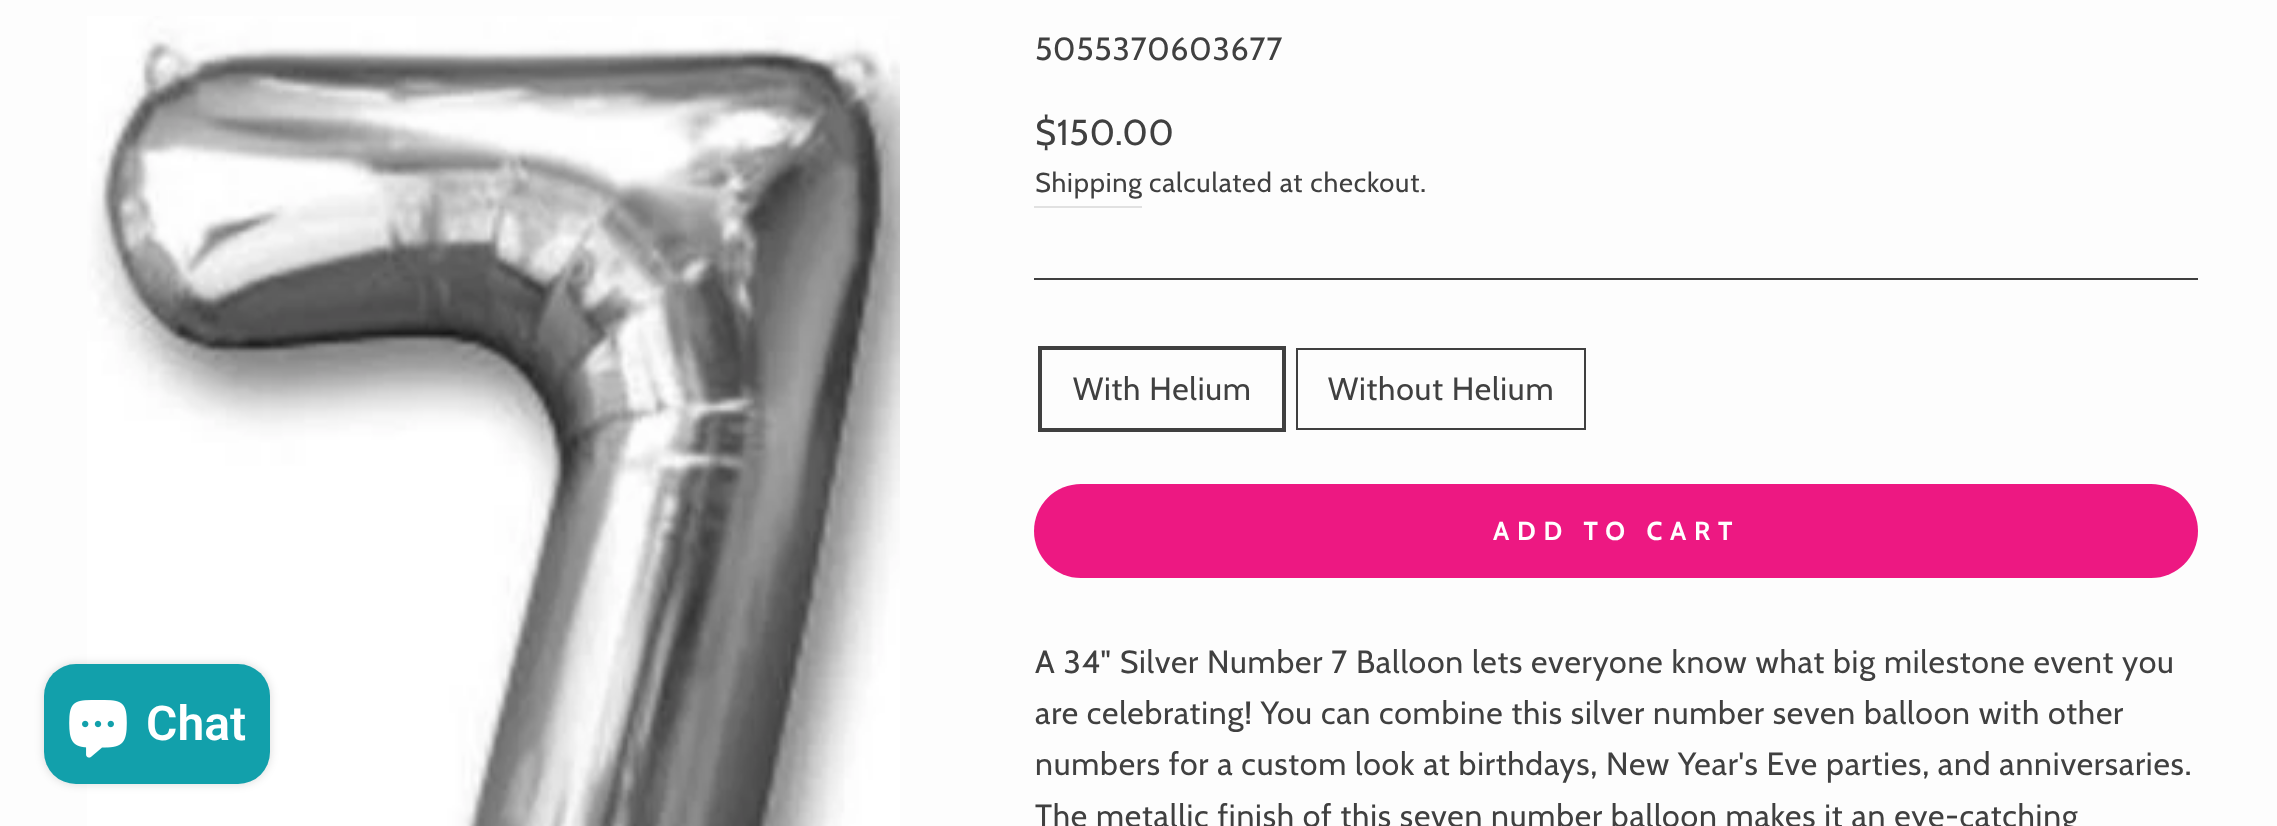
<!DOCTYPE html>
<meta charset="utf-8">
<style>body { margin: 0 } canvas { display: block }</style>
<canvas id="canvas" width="2277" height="826"></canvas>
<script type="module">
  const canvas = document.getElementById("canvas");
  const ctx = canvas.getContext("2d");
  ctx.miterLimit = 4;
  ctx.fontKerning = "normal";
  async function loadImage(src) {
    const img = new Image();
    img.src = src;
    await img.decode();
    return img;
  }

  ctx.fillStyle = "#fdfdfd";
  ctx.fillRect(0, 0, 2277, 826);
  ctx.drawImage(await loadImage("img2.png"), 87, 16, 813, 810);
  ctx.fillStyle = "rgba(0, 0, 0, 0.15)";
  ctx.filter = "blur(5px)";
  ctx.beginPath();
  ctx.roundRect(44, 664, 226, 120, 32);
  ctx.fill();
  ctx.filter = "none";
  ctx.fillStyle = "#12a0ab";
  ctx.beginPath();
  ctx.roundRect(44, 664, 226, 120, 32);
  ctx.fill();
  ctx.drawImage(await loadImage("img1.png"), 69, 700, 58, 58);
  ctx.font = "600 48px Roboto";
  ctx.fillStyle = "#ffffff";
  ctx.fillText("Chat", 146, 740);
  ctx.letterSpacing = "0.8px";
  ctx.font = "32px Cabin";
  ctx.fillStyle = "#404040";
  ctx.fillText("5055370603677", 1035, 60);
  ctx.font = "36px Cabin";
  ctx.fillText("$150.00", 1035, 145);
  ctx.fillStyle = "#e1e1e1";
  ctx.fillRect(1034, 206, 108, 2);
  ctx.font = "27.25px Cabin";
  ctx.fillStyle = "#404040";
  ctx.fillText("Shipping", 1035, 192);
  ctx.fillText("calculated at checkout.", 1149, 192);
  ctx.fillRect(1034, 278, 1164, 2);
  ctx.strokeStyle = "#404040";
  ctx.lineWidth = 4;
  ctx.strokeRect(1040, 348, 244, 82);
  ctx.font = "32px Cabin";
  ctx.fillText("With Helium", 1073, 400);
  ctx.lineWidth = 2;
  ctx.strokeRect(1297, 349, 288, 80);
  ctx.fillText("Without Helium", 1328, 400);
  ctx.fillStyle = "#ed1882";
  ctx.beginPath();
  ctx.roundRect(1034, 484, 1164, 94, 47);
  ctx.fill();
  ctx.letterSpacing = "7.75px";
  ctx.font = "bold 26px Cabin";
  ctx.fillStyle = "#ffffff";
  ctx.fillText("ADD TO CART", 1493, 540);
  ctx.letterSpacing = "0.8px";
  ctx.font = "32px Cabin";
  ctx.fillStyle = "#404040";
  ctx.fillText("A 34\" Silver Number 7 Balloon lets everyone know what big milestone event you", 1035, 673);
  ctx.fillText("are celebrating! You can combine this silver number seven balloon with other", 1035, 724);
  ctx.fillText("numbers for a custom look at birthdays, New Year's Eve parties, and anniversaries.", 1035, 775);
  ctx.fillText("The metallic finish of this seven number balloon makes it an eye-catching", 1035, 827);
</script>
